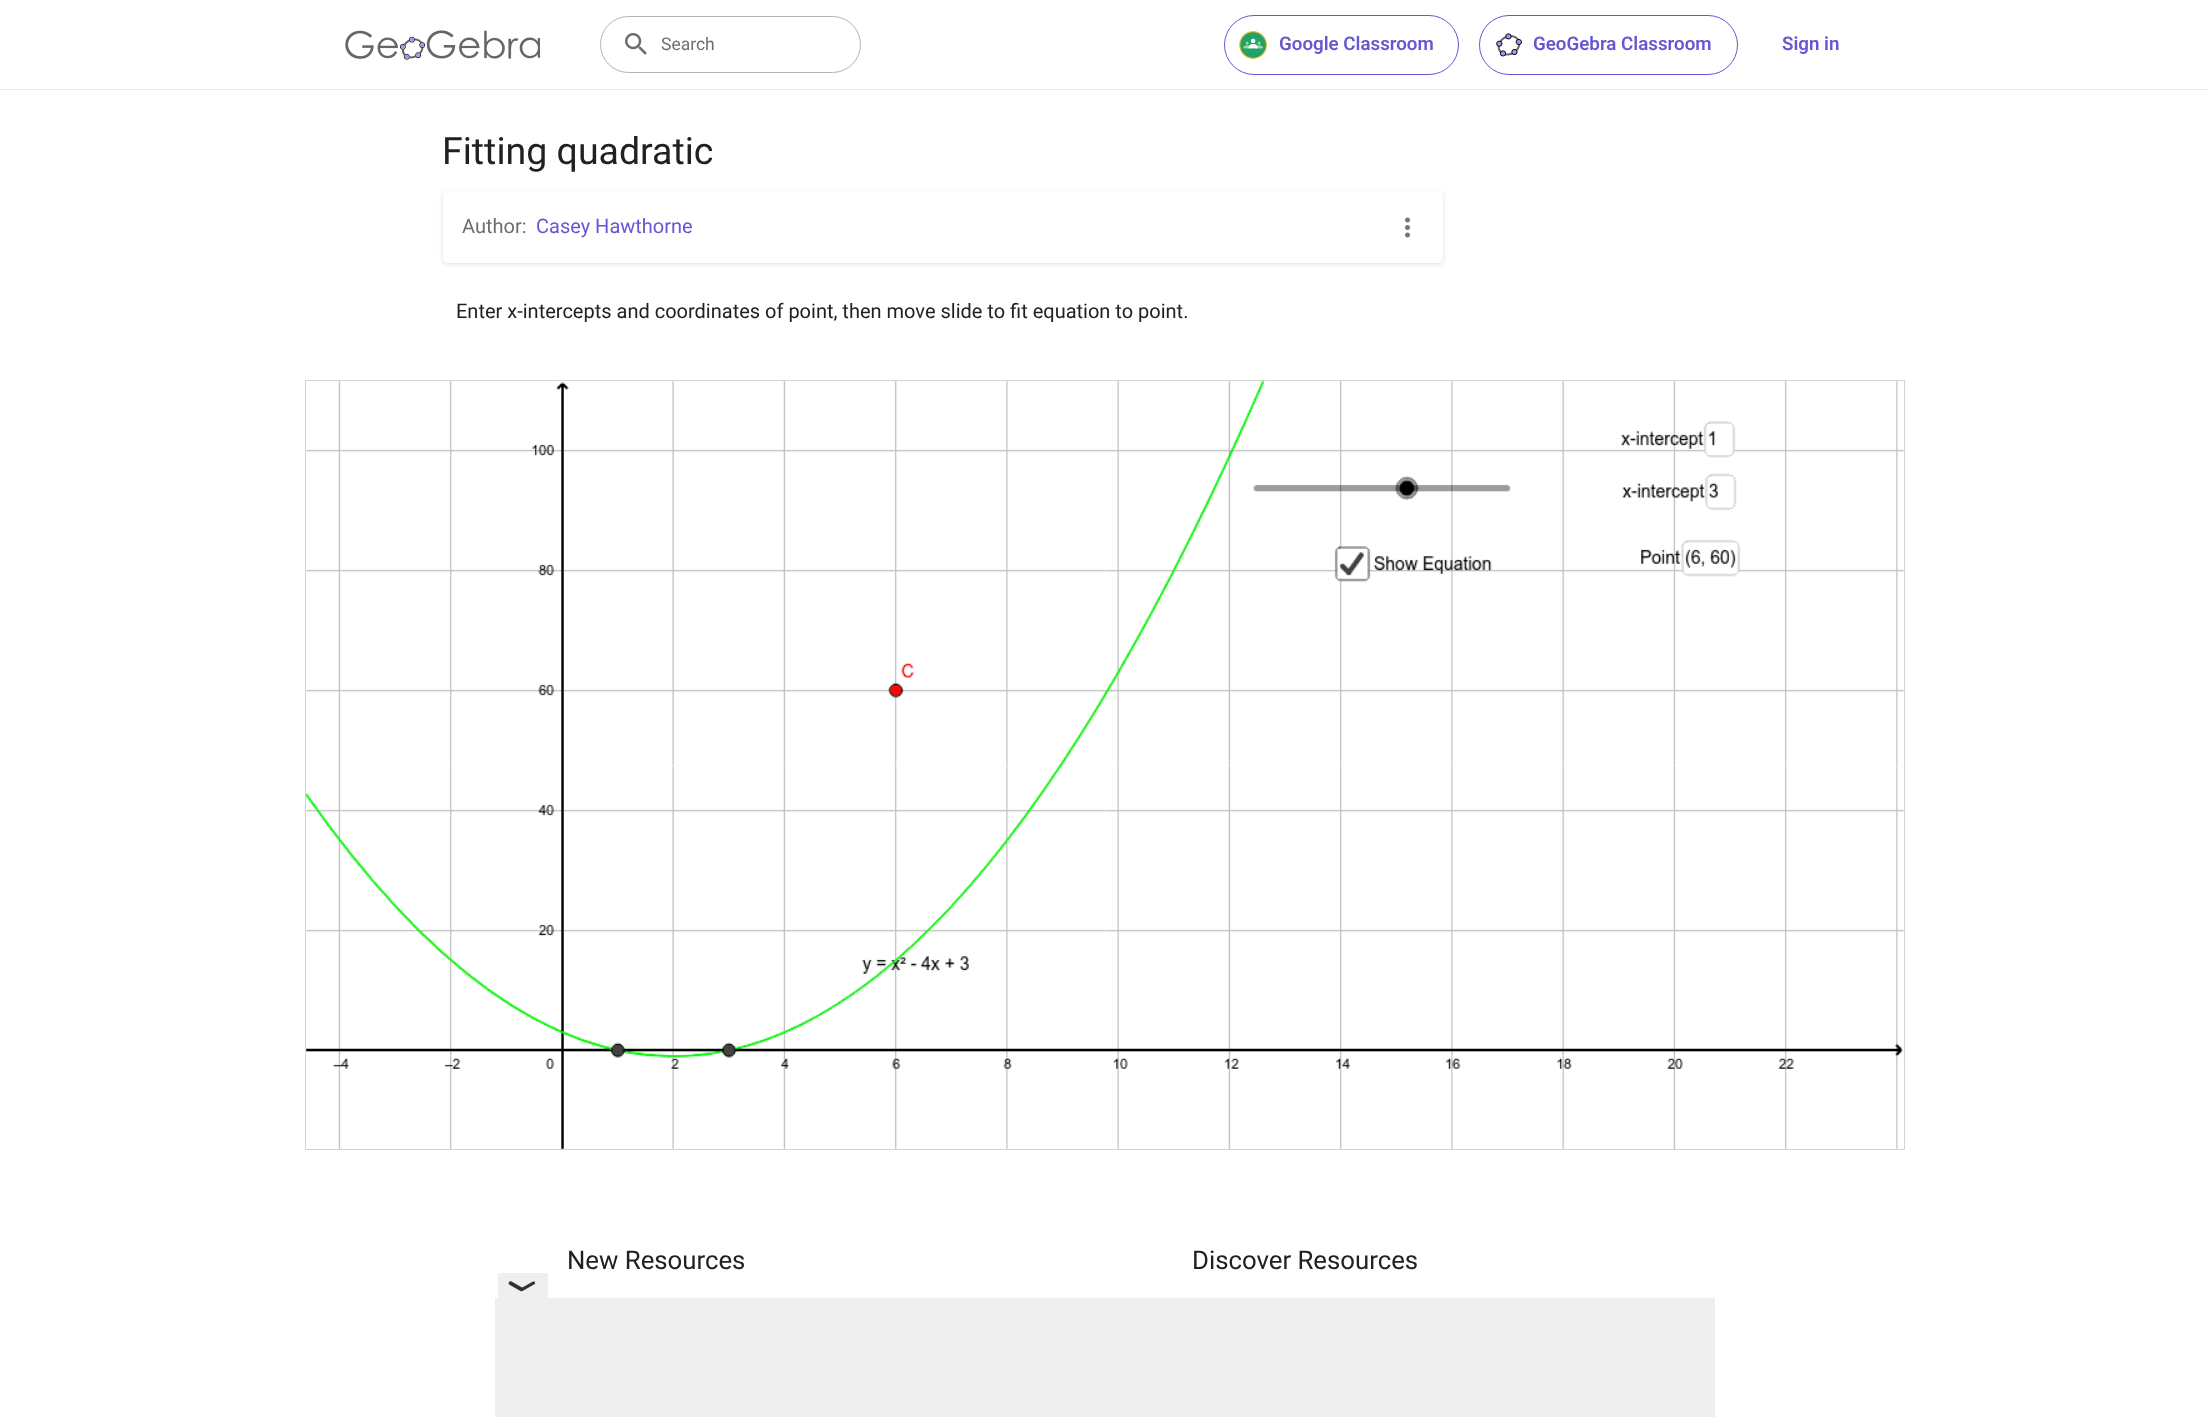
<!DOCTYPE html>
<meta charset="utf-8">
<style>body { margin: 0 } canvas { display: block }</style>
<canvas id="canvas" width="2208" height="1417"></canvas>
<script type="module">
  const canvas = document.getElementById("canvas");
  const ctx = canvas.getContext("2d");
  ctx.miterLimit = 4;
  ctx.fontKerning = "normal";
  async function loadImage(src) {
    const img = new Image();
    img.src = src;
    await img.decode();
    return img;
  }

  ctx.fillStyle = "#ffffff";
  ctx.fillRect(0, 0, 2208, 1417);
  ctx.fillStyle = "#e6e6eb";
  ctx.fillRect(0, 89, 2208, 1);
  ctx.drawImage(await loadImage("img1.png"), 345, 30, 195, 30);
  ctx.beginPath();
  ctx.roundRect(600.5, 16.5, 260, 56, 28);
  ctx.strokeStyle = "#b4b3ba";
  ctx.stroke();
  ctx.drawImage(await loadImage("img2.png"), 625, 33, 22, 22);
  ctx.font = "17.5px Roboto";
  ctx.fillStyle = "#6e6d73";
  ctx.fillText("Search", 661, 50);
  ctx.beginPath();
  ctx.roundRect(1224.5, 15.5, 234, 59, 29.5);
  ctx.strokeStyle = "#6557d2";
  ctx.stroke();
  ctx.drawImage(await loadImage("img3.png"), 1239, 31, 28, 28);
  ctx.font = "600 18.75px Roboto";
  ctx.fillStyle = "#6557d2";
  ctx.fillText("Google Classroom", 1279, 50);
  ctx.beginPath();
  ctx.roundRect(1479.5, 15.5, 258, 59, 29.5);
  ctx.stroke();
  ctx.drawImage(await loadImage("img4.png"), 1496, 33, 26, 24);
  ctx.fillText("GeoGebra Classroom", 1533, 50);
  ctx.fillText("Sign in", 1782, 50);
  ctx.font = "37.5px Roboto";
  ctx.fillStyle = "#212121";
  ctx.fillText("Fitting quadratic", 442, 164);
  ctx.fillStyle = "rgba(28, 28, 31, 0.14)";
  ctx.filter = "blur(2.5px)";
  ctx.beginPath();
  ctx.roundRect(443, 193, 1000, 71, 5);
  ctx.fill();
  ctx.filter = "none";
  ctx.fillStyle = "#ffffff";
  ctx.beginPath();
  ctx.roundRect(443, 191, 1000, 72, 5);
  ctx.fill();
  ctx.font = "20px Roboto";
  ctx.fillStyle = "#6e6d73";
  ctx.fillText("Author:", 462, 233);
  ctx.fillStyle = "#6557d2";
  ctx.fillText("Casey Hawthorne", 536, 233);
  ctx.drawImage(await loadImage("img5.png"), 1405, 217, 5, 21);
  ctx.fillStyle = "#212121";
  ctx.fillText("Enter x-intercepts and coordinates of point, then move slide to fit equation to point.", 456, 318);
  ctx.drawImage(await loadImage("img6.png"), 306, 381, 1598, 768);
  ctx.strokeStyle = "#d3d3d3";
  ctx.strokeRect(305.5, 380.5, 1599, 769);
  ctx.font = "25.75px Roboto";
  ctx.fillText("New Resources", 567, 1269);
  ctx.fillText("Discover Resources", 1192, 1269);
  ctx.fillStyle = "#efefef";
  ctx.beginPath();
  ctx.roundRect(498, 1273, 50, 25, [2.5, 2.5, 0, 0]);
  ctx.fill();
  ctx.fillStyle = "#313131";
  ctx.beginPath();
  ctx.moveTo(511.5, 1281.5);
  ctx.lineTo(523, 1288);
  ctx.bezierCurveTo(524, 1290, 522, 1292, 520.5, 1291);
  ctx.lineTo(509, 1284.5);
  ctx.bezierCurveTo(508, 1282.5, 509.5, 1280.5, 511.5, 1281.5);
  ctx.closePath();
  ctx.fill();
  ctx.beginPath();
  ctx.moveTo(521.5, 1288);
  ctx.lineTo(533, 1281.5);
  ctx.bezierCurveTo(535, 1281, 536, 1283.5, 534, 1284.5);
  ctx.lineTo(522.5, 1291);
  ctx.bezierCurveTo(520.5, 1291.5, 520, 1288.5, 521.5, 1288);
  ctx.closePath();
  ctx.fill();
  ctx.fillStyle = "#efefef";
  ctx.fillRect(495, 1298, 1220, 119);
</script>
